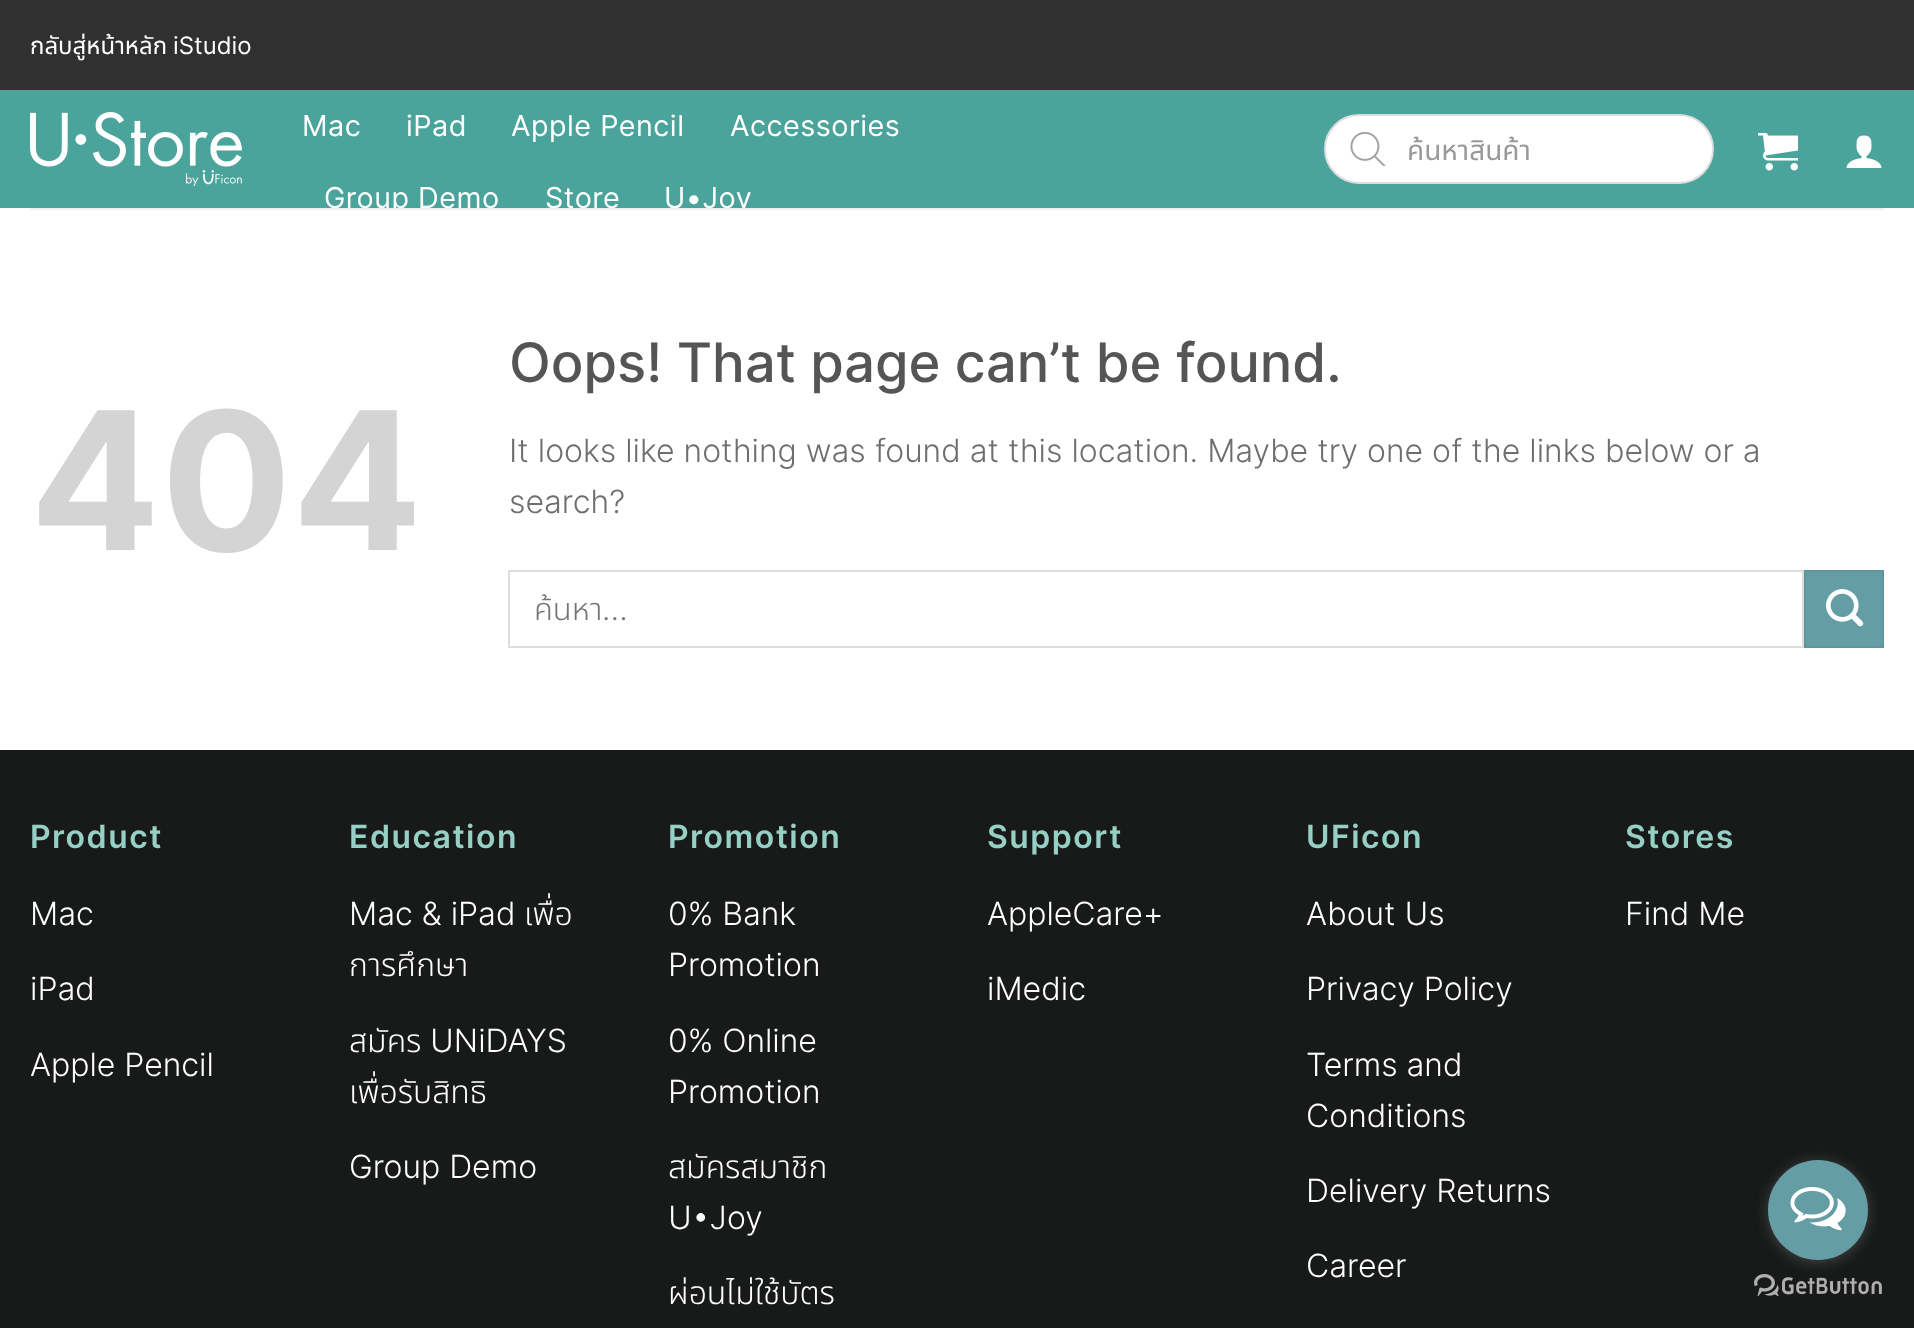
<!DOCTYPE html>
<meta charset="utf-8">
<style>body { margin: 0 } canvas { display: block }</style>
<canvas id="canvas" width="1914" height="1328"></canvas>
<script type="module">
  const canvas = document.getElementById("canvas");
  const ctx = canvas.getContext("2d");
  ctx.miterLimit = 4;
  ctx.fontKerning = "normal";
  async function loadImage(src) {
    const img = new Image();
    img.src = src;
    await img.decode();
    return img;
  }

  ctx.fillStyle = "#ffffff";
  ctx.fillRect(0, 0, 1914, 1328);
  ctx.fillStyle = "#303030";
  ctx.fillRect(0, 0, 1914, 90);
  ctx.font = "24px Noto Sans Thai";
  ctx.fillStyle = "#ffffff";
  ctx.fillText("กลับสู่หน้าหลัก", 30, 54);
  ctx.font = "24px Inter";
  ctx.fillText("iStudio", 173, 54);
  ctx.fillStyle = "#4ba49b";
  ctx.fillRect(0, 90, 1914, 118);
  ctx.drawImage(await loadImage("img1.png"), 30, 112, 212, 74);
  ctx.letterSpacing = "0.5px";
  ctx.font = "28.75px Inter";
  ctx.fillStyle = "#ffffff";
  ctx.fillText("Mac", 302, 136);
  ctx.fillText("iPad", 406, 136);
  ctx.fillText("Apple Pencil", 511, 136);
  ctx.fillText("Accessories", 730, 136);
  ctx.fillText("Group Demo", 324, 208);
  ctx.fillText("Store", 545, 208);
  ctx.fillText("U•Joy", 664, 208);
  ctx.beginPath();
  ctx.roundRect(1325, 115, 388, 68, 34);
  ctx.fill();
  ctx.strokeStyle = "#dddddd";
  ctx.lineWidth = 2;
  ctx.stroke();
  ctx.drawImage(await loadImage("img2.png"), 1350, 132, 36, 34);
  ctx.save();
  ctx.beginPath();
  ctx.rect(1406, 130, 276, 42);
  ctx.clip();
  ctx.letterSpacing = "0px";
  ctx.font = "28px Noto Sans Thai";
  ctx.fillStyle = "#999999";
  ctx.fillText("ค้นหาสินค้า", 1407, 160);
  ctx.restore();
  ctx.drawImage(await loadImage("img3.png"), 1758, 133, 40, 38);
  ctx.drawImage(await loadImage("img4.png"), 1846, 135, 36, 33);
  ctx.fillStyle = "#f1f1f1";
  ctx.fillRect(30, 208, 1854, 2);
  ctx.letterSpacing = "0px";
  ctx.font = "bold 192px Inter";
  ctx.fillStyle = "#d4d4d4";
  ctx.fillText("404", 30, 550);
  ctx.font = "500 54.4px Inter";
  ctx.fillStyle = "#555555";
  ctx.fillText("Oops! That page can’t be found.", 509, 382);
  ctx.font = "300 32px Inter";
  ctx.fillStyle = "#6e6e70";
  ctx.fillText("It looks like nothing was found at this location. Maybe try one of the links below or a", 509, 462);
  ctx.fillText("search?", 509, 513);
  ctx.strokeRect(509, 571, 1294, 76);
  ctx.save();
  ctx.beginPath();
  ctx.rect(534, 588, 1238, 46);
  ctx.clip();
  ctx.font = "300 31px Noto Sans Thai";
  ctx.fillStyle = "#757575";
  ctx.fillText("ค้นหา", 534, 620);
  ctx.restore();
  ctx.font = "300 31px Inter";
  ctx.fillStyle = "#757575";
  ctx.fillText("…", 602, 620);
  ctx.fillStyle = "#649da4";
  ctx.beginPath();
  ctx.rect(1805, 571, 78, 76);
  ctx.fill();
  ctx.strokeStyle = "#5f959c";
  ctx.stroke();
  ctx.drawImage(await loadImage("img5.png"), 1826, 589, 38, 38);
  ctx.fillStyle = "#181919";
  ctx.fillRect(0, 750, 1914, 578);
  ctx.letterSpacing = "1.5px";
  ctx.font = "600 32px Inter";
  ctx.fillStyle = "#96cfc4";
  ctx.fillText("Product", 30, 848);
  ctx.letterSpacing = "0px";
  ctx.font = "300 32px Inter";
  ctx.fillStyle = "#ffffff";
  ctx.fillText("Mac", 30, 925);
  ctx.fillText("iPad", 30, 1000);
  ctx.fillText("Apple Pencil", 30, 1076);
  ctx.letterSpacing = "1.5px";
  ctx.font = "600 32px Inter";
  ctx.fillStyle = "#96cfc4";
  ctx.fillText("Education", 349, 848);
  ctx.letterSpacing = "0px";
  ctx.font = "300 32px Inter";
  ctx.fillStyle = "#ffffff";
  ctx.fillText("Mac & iPad", 349, 925);
  ctx.font = "300 32px Noto Sans Thai";
  ctx.fillText("เพื่อ", 524, 925);
  ctx.fillText("การศึกษา", 349, 976);
  ctx.fillText("สมัคร", 349, 1052);
  ctx.font = "300 32px Inter";
  ctx.fillText("UNiDAYS", 430, 1052);
  ctx.font = "300 32px Noto Sans Thai";
  ctx.fillText("เพื่อรับสิทธิ", 349, 1103);
  ctx.font = "300 32px Inter";
  ctx.fillText("Group Demo", 349, 1178);
  ctx.letterSpacing = "1.5px";
  ctx.font = "600 32px Inter";
  ctx.fillStyle = "#96cfc4";
  ctx.fillText("Promotion", 668, 848);
  ctx.letterSpacing = "0px";
  ctx.font = "300 32px Inter";
  ctx.fillStyle = "#ffffff";
  ctx.fillText("0% Bank", 668, 925);
  ctx.fillText("Promotion", 668, 976);
  ctx.fillText("0% Online", 668, 1052);
  ctx.fillText("Promotion", 668, 1103);
  ctx.font = "300 32px Noto Sans Thai";
  ctx.fillText("สมัครสมาชิก", 668, 1178);
  ctx.font = "300 32px Inter";
  ctx.fillText("U•Joy", 668, 1229);
  ctx.font = "300 32px Noto Sans Thai";
  ctx.fillText("ผ่อนไม่ใช้บัตร", 668, 1304);
  ctx.letterSpacing = "1.5px";
  ctx.font = "600 32px Inter";
  ctx.fillStyle = "#96cfc4";
  ctx.fillText("Support", 987, 848);
  ctx.letterSpacing = "0px";
  ctx.font = "300 32px Inter";
  ctx.fillStyle = "#ffffff";
  ctx.fillText("AppleCare+", 987, 925);
  ctx.fillText("iMedic", 987, 1000);
  ctx.letterSpacing = "1.5px";
  ctx.font = "600 32px Inter";
  ctx.fillStyle = "#96cfc4";
  ctx.fillText("UFicon", 1306, 848);
  ctx.letterSpacing = "0px";
  ctx.font = "300 32px Inter";
  ctx.fillStyle = "#ffffff";
  ctx.fillText("About Us", 1306, 925);
  ctx.fillText("Privacy Policy", 1306, 1000);
  ctx.fillText("Terms and", 1306, 1076);
  ctx.fillText("Conditions", 1306, 1127);
  ctx.fillText("Delivery Returns", 1306, 1202);
  ctx.fillText("Career", 1306, 1277);
  ctx.letterSpacing = "1.5px";
  ctx.font = "600 32px Inter";
  ctx.fillStyle = "#96cfc4";
  ctx.fillText("Stores", 1625, 848);
  ctx.letterSpacing = "0px";
  ctx.font = "300 32px Inter";
  ctx.fillStyle = "#ffffff";
  ctx.fillText("Find Me", 1625, 925);
  ctx.drawImage(await loadImage("img7.png"), 1754, 1274, 128, 22);
  ctx.fillStyle = "rgba(136, 136, 136, 0.4)";
  ctx.filter = "blur(7px)";
  ctx.beginPath();
  ctx.roundRect(1768, 1162, 100, 100, 50);
  ctx.fill();
  ctx.filter = "none";
  ctx.fillStyle = "#649da4";
  ctx.beginPath();
  ctx.arc(1818, 1210, 50, 0, Math.PI * 2);
  ctx.fill();
  ctx.drawImage(await loadImage("img6.png"), 1790, 1187, 56, 44);
</script>
